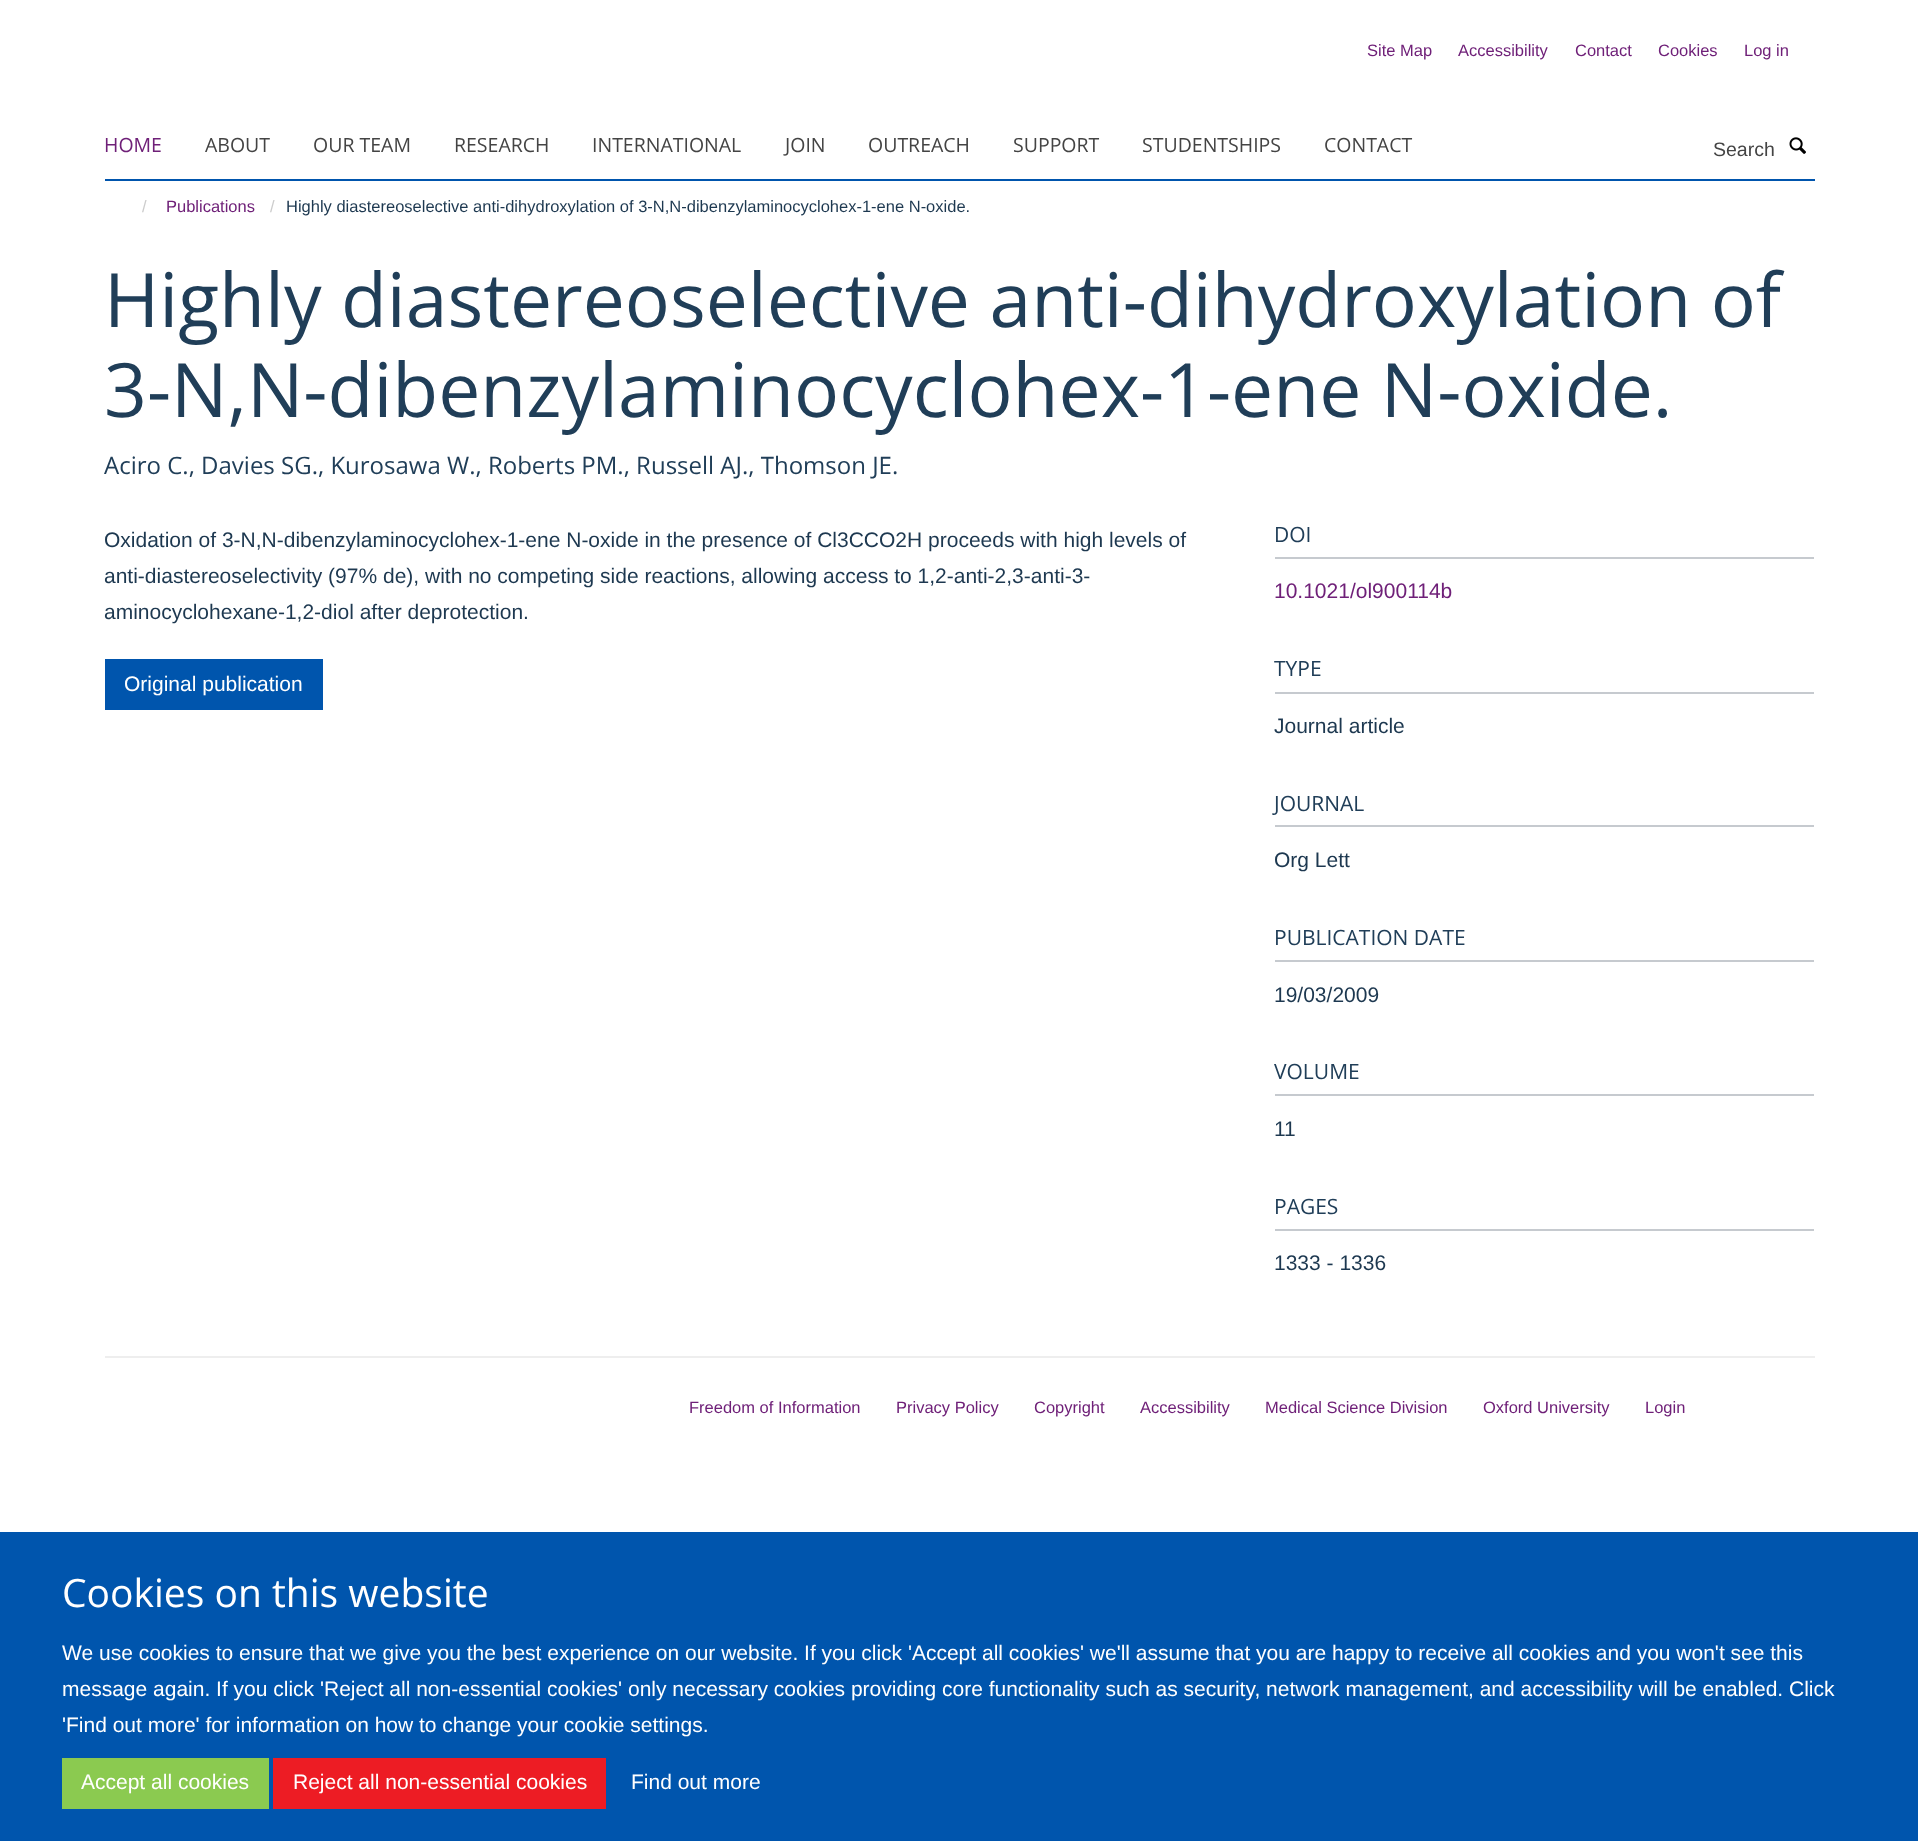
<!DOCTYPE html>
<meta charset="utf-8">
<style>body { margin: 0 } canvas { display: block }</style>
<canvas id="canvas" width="1918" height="1841"></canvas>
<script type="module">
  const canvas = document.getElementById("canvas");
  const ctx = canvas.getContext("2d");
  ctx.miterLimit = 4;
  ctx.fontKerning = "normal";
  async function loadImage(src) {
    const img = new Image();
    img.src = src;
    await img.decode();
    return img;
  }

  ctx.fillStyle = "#ffffff";
  ctx.fillRect(0, 0, 1918, 1841);
  ctx.font = "16.5px Liberation Sans";
  ctx.fillStyle = "#6f2078";
  ctx.fillText("Site Map", 1367, 56);
  ctx.fillText("Accessibility", 1458, 56);
  ctx.fillText("Contact", 1575, 56);
  ctx.fillText("Cookies", 1658, 56);
  ctx.fillText("Log in", 1744, 56);
  ctx.fillStyle = "#0055ad";
  ctx.fillRect(105, 179, 1710, 2);
  ctx.font = "19.5px Open Sans";
  ctx.fillStyle = "#6f2078";
  ctx.fillText("HOME", 104, 152);
  ctx.fillStyle = "#444444";
  ctx.fillText("ABOUT", 205, 152);
  ctx.fillText("OUR TEAM", 313, 152);
  ctx.fillText("RESEARCH", 454, 152);
  ctx.fillText("INTERNATIONAL", 592, 152);
  ctx.fillText("JOIN", 785, 152);
  ctx.fillText("OUTREACH", 868, 152);
  ctx.fillText("SUPPORT", 1013, 152);
  ctx.fillText("STUDENTSHIPS", 1142, 152);
  ctx.fillText("CONTACT", 1324, 152);
  ctx.font = "19.5px Liberation Sans";
  ctx.fillText("Search", 1713, 156);
  ctx.drawImage(await loadImage("img1.png"), 1789, 137, 17, 17);
  ctx.font = "16.5px Liberation Sans";
  ctx.fillStyle = "#cccccc";
  ctx.fillText("/", 142, 212);
  ctx.fillStyle = "#6f2078";
  ctx.fillText("Publications", 166, 212);
  ctx.fillStyle = "#cccccc";
  ctx.fillText("/", 270, 212);
  ctx.fillStyle = "#1d3850";
  ctx.fillText("Highly diastereoselective anti-dihydroxylation of 3-N,N-dibenzylaminocyclohex-1-ene N-oxide.", 286, 212);
  ctx.font = "75px Open Sans";
  ctx.fillStyle = "#203e58";
  ctx.fillText("Highly diastereoselective anti-dihydroxylation of", 104, 327);
  ctx.fillText("3-N,N-dibenzylaminocyclohex-1-ene N-oxide.", 104, 417);
  ctx.font = "24px Open Sans";
  ctx.fillText("Aciro C., Davies SG., Kurosawa W., Roberts PM., Russell AJ., Thomson JE.", 104, 474);
  ctx.font = "21px Liberation Sans";
  ctx.fillStyle = "#1d3850";
  ctx.fillText("Oxidation of 3-N,N-dibenzylaminocyclohex-1-ene N-oxide in the presence of Cl3CCO2H proceeds with high levels of", 104, 547);
  ctx.fillText("anti-diastereoselectivity (97% de), with no competing side reactions, allowing access to 1,2-anti-2,3-anti-3-", 104, 583);
  ctx.fillText("aminocyclohexane-1,2-diol after deprotection.", 104, 619);
  ctx.fillStyle = "#0055ad";
  ctx.fillRect(105, 659, 218, 51);
  ctx.fillStyle = "#ffffff";
  ctx.fillText("Original publication", 124, 691);
  ctx.fillStyle = "#c6cacf";
  ctx.fillRect(1275, 557, 539, 2);
  ctx.font = "21px Open Sans";
  ctx.fillStyle = "#203e58";
  ctx.fillText("DOI", 1274, 542);
  ctx.font = "21px Liberation Sans";
  ctx.fillStyle = "#6f2078";
  ctx.fillText("10.1021/ol900114b", 1274, 598);
  ctx.fillStyle = "#c6cacf";
  ctx.fillRect(1275, 692, 539, 2);
  ctx.font = "21px Open Sans";
  ctx.fillStyle = "#203e58";
  ctx.fillText("TYPE", 1274, 676);
  ctx.font = "21px Liberation Sans";
  ctx.fillStyle = "#1d3850";
  ctx.fillText("Journal article", 1274, 733);
  ctx.fillStyle = "#c6cacf";
  ctx.fillRect(1275, 825, 539, 2);
  ctx.font = "21px Open Sans";
  ctx.fillStyle = "#203e58";
  ctx.fillText("JOURNAL", 1274, 811);
  ctx.font = "21px Liberation Sans";
  ctx.fillStyle = "#1d3850";
  ctx.fillText("Org Lett", 1274, 867);
  ctx.fillStyle = "#c6cacf";
  ctx.fillRect(1275, 960, 539, 2);
  ctx.font = "21px Open Sans";
  ctx.fillStyle = "#203e58";
  ctx.fillText("PUBLICATION DATE", 1274, 945);
  ctx.font = "21px Liberation Sans";
  ctx.fillStyle = "#1d3850";
  ctx.fillText("19/03/2009", 1274, 1002);
  ctx.fillStyle = "#c6cacf";
  ctx.fillRect(1275, 1094, 539, 2);
  ctx.font = "21px Open Sans";
  ctx.fillStyle = "#203e58";
  ctx.fillText("VOLUME", 1274, 1079);
  ctx.font = "21px Liberation Sans";
  ctx.fillStyle = "#1d3850";
  ctx.fillText("11", 1274, 1136);
  ctx.fillStyle = "#c6cacf";
  ctx.fillRect(1275, 1229, 539, 2);
  ctx.font = "21px Open Sans";
  ctx.fillStyle = "#203e58";
  ctx.fillText("PAGES", 1274, 1214);
  ctx.font = "21px Liberation Sans";
  ctx.fillStyle = "#1d3850";
  ctx.fillText("1333 - 1336", 1274, 1270);
  ctx.fillStyle = "#eeeeee";
  ctx.fillRect(105, 1356, 1710, 2);
  ctx.font = "16.5px Liberation Sans";
  ctx.fillStyle = "#6f2078";
  ctx.fillText("Freedom of Information", 689, 1413);
  ctx.fillText("Privacy Policy", 896, 1413);
  ctx.fillText("Copyright", 1034, 1413);
  ctx.fillText("Accessibility", 1140, 1413);
  ctx.fillText("Medical Science Division", 1265, 1413);
  ctx.fillText("Oxford University", 1483, 1413);
  ctx.fillText("Login", 1645, 1413);
  ctx.fillStyle = "#0055ad";
  ctx.fillRect(0, 1532, 1918, 309);
  ctx.font = "39px Open Sans";
  ctx.fillStyle = "#ffffff";
  ctx.fillText("Cookies on this website", 62, 1607);
  ctx.font = "21px Liberation Sans";
  ctx.fillText("We use cookies to ensure that we give you the best experience on our website. If you click 'Accept all cookies' we'll assume that you are happy to receive all cookies and you won't see this", 62, 1660);
  ctx.fillText("message again. If you click 'Reject all non-essential cookies' only necessary cookies providing core functionality such as security, network management, and accessibility will be enabled. Click", 62, 1696);
  ctx.fillText("'Find out more' for information on how to change your cookie settings.", 62, 1732);
  ctx.fillStyle = "#8bca50";
  ctx.fillRect(62, 1758, 207, 51);
  ctx.fillStyle = "#ffffff";
  ctx.fillText("Accept all cookies", 81, 1789);
  ctx.fillStyle = "#ed1c24";
  ctx.fillRect(273, 1758, 333, 51);
  ctx.fillStyle = "#ffffff";
  ctx.fillText("Reject all non-essential cookies", 293, 1789);
  ctx.fillText("Find out more", 631, 1789);
</script>
